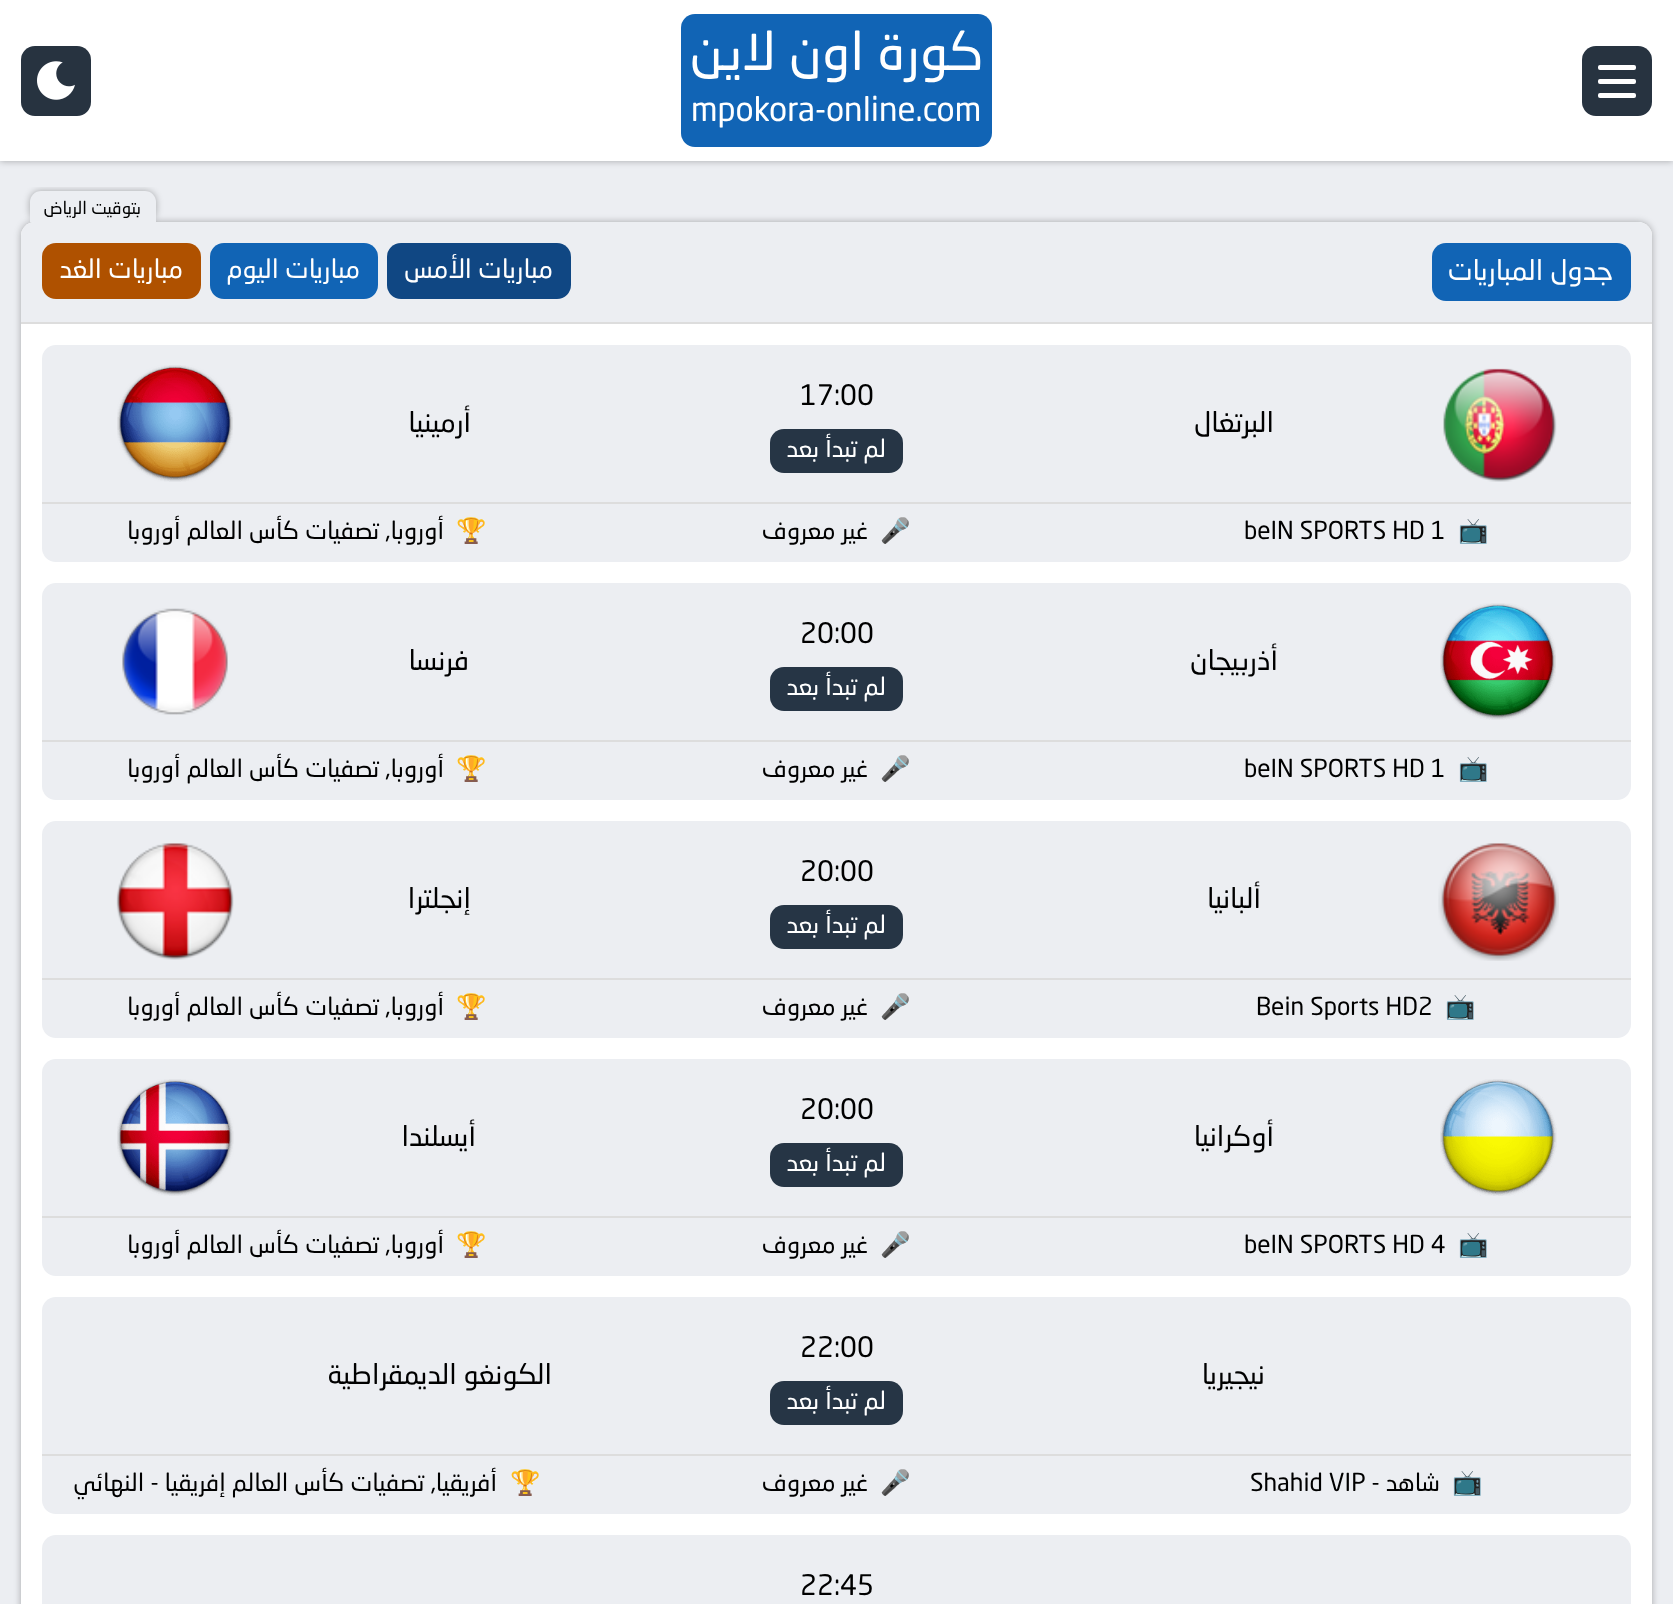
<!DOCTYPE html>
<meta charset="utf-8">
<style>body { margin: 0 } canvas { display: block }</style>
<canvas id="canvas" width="1673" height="1604"></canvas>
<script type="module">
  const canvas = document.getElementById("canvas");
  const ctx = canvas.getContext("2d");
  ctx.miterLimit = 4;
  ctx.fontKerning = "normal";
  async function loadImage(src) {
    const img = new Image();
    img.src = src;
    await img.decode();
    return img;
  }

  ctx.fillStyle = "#eceef2";
  ctx.fillRect(0, 0, 1673, 1604);
  ctx.fillStyle = "rgba(0, 0, 0, 0.3)";
  ctx.filter = "blur(3.5px)";
  ctx.beginPath();
  ctx.rect(0, 0, 1673, 161);
  ctx.fill();
  ctx.filter = "none";
  ctx.fillStyle = "#ffffff";
  ctx.fillRect(0, 0, 1673, 161);
  ctx.fillStyle = "#273340";
  ctx.beginPath();
  ctx.roundRect(1582, 46, 70, 70, 14);
  ctx.fill();
  ctx.fillStyle = "#ffffff";
  ctx.beginPath();
  ctx.roundRect(1598, 65, 38, 5, 2);
  ctx.fill();
  ctx.beginPath();
  ctx.roundRect(1598, 79, 38, 5, 2);
  ctx.fill();
  ctx.beginPath();
  ctx.roundRect(1598, 93, 38, 5, 2);
  ctx.fill();
  ctx.fillStyle = "#1164b5";
  ctx.beginPath();
  ctx.roundRect(681, 14, 311, 133, 14);
  ctx.fill();
  ctx.direction = "rtl";
  ctx.font = "52.5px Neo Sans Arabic";
  ctx.fillStyle = "#ffffff";
  ctx.fillText("كورة اون لاين", 984, 70);
  ctx.direction = "ltr";
  ctx.font = "33.25px Neo Sans Arabic";
  ctx.fillText("mpokora-online.com", 691, 121);
  ctx.fillStyle = "#273340";
  ctx.beginPath();
  ctx.roundRect(21, 46, 70, 70, 14);
  ctx.fill();
  ctx.drawImage(await loadImage("img1.png"), 37, 61, 38, 39);
  ctx.fillStyle = "rgba(0, 0, 0, 0.3)";
  ctx.filter = "blur(3.5px)";
  ctx.beginPath();
  ctx.roundRect(21, 222, 1631, 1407, 14);
  ctx.fill();
  ctx.filter = "none";
  ctx.fillStyle = "#ffffff";
  ctx.beginPath();
  ctx.roundRect(21, 222, 1631, 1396, 14);
  ctx.fill();
  ctx.fillStyle = "#eceef2";
  ctx.beginPath();
  ctx.roundRect(21, 222, 1631, 102, [14, 14, 0, 0]);
  ctx.fill();
  ctx.save();
  ctx.beginPath();
  ctx.rect(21, 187, 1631, 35);
  ctx.clip();
  ctx.fillStyle = "rgba(0, 0, 0, 0.3)";
  ctx.filter = "blur(3.5px)";
  ctx.beginPath();
  ctx.roundRect(30, 191, 126, 31, 11);
  ctx.fill();
  ctx.filter = "none";
  ctx.restore();
  ctx.beginPath();
  ctx.roundRect(30, 191, 126, 31, [11, 11, 0, 0]);
  ctx.fill();
  ctx.direction = "rtl";
  ctx.font = "17.5px Neo Sans Arabic";
  ctx.fillStyle = "#000000";
  ctx.fillText("بتوقيت الرياض", 141, 214);
  ctx.fillStyle = "#dddddd";
  ctx.fillRect(21, 322, 1631, 2);
  ctx.fillStyle = "#1164b5";
  ctx.beginPath();
  ctx.roundRect(1432, 243, 199, 58, 14);
  ctx.fill();
  ctx.font = "28px Neo Sans Arabic";
  ctx.fillStyle = "#ffffff";
  ctx.fillText("جدول المباريات", 1613, 280);
  ctx.fillStyle = "#104783";
  ctx.beginPath();
  ctx.roundRect(387, 243, 184, 56, 14);
  ctx.fill();
  ctx.font = "26.25px Neo Sans Arabic";
  ctx.fillStyle = "#ffffff";
  ctx.fillText("مباريات الأمس", 553, 278);
  ctx.fillStyle = "#1164b5";
  ctx.beginPath();
  ctx.roundRect(210, 243, 168, 56, 14);
  ctx.fill();
  ctx.fillStyle = "#ffffff";
  ctx.fillText("مباريات اليوم", 360, 278);
  ctx.fillStyle = "#af5100";
  ctx.beginPath();
  ctx.roundRect(42, 243, 159, 56, 14);
  ctx.fill();
  ctx.fillStyle = "#ffffff";
  ctx.fillText("مباريات الغد", 183, 278);
  ctx.fillStyle = "#eceef2";
  ctx.beginPath();
  ctx.roundRect(42, 345, 1589, 217, 14);
  ctx.fill();
  ctx.drawImage(await loadImage("img2.png"), 1443, 368, 114, 114);
  ctx.font = "28px Neo Sans Arabic";
  ctx.fillStyle = "#000000";
  ctx.fillText("البرتغال", 1274, 432);
  ctx.direction = "ltr";
  ctx.fillText("17:00", 800, 405);
  ctx.fillStyle = "#263545";
  ctx.beginPath();
  ctx.roundRect(770, 429, 133, 44, 14);
  ctx.fill();
  ctx.direction = "rtl";
  ctx.font = "24.5px Neo Sans Arabic";
  ctx.fillStyle = "#ffffff";
  ctx.fillText("لم تبدأ بعد", 886, 457);
  ctx.font = "28px Neo Sans Arabic";
  ctx.fillStyle = "#000000";
  ctx.fillText("أرمينيا", 471, 432);
  ctx.drawImage(await loadImage("img3.png"), 117, 365, 116, 117);
  ctx.fillStyle = "#dddddd";
  ctx.fillRect(42, 502, 1589, 2);
  ctx.direction = "ltr";
  ctx.font = "24.5px Noto Color Emoji";
  ctx.fillStyle = "#000000";
  ctx.fillText("📺", 1458, 539);
  ctx.font = "24.5px Neo Sans Arabic";
  ctx.fillText("beIN SPORTS HD 1", 1244, 539);
  ctx.font = "24.5px Noto Color Emoji";
  ctx.fillText("🎤", 880, 539);
  ctx.direction = "rtl";
  ctx.font = "24.5px Neo Sans Arabic";
  ctx.fillText("غير معروف", 868, 539);
  ctx.direction = "ltr";
  ctx.font = "24.5px Noto Color Emoji";
  ctx.fillText("🏆", 456, 539);
  ctx.direction = "rtl";
  ctx.font = "24.5px Neo Sans Arabic";
  ctx.fillText("أوروبا, تصفيات كأس العالم أوروبا", 444, 539);
  ctx.fillStyle = "#eceef2";
  ctx.beginPath();
  ctx.roundRect(42, 583, 1589, 217, 14);
  ctx.fill();
  ctx.drawImage(await loadImage("img4.png"), 1440, 603, 116, 117);
  ctx.font = "28px Neo Sans Arabic";
  ctx.fillStyle = "#000000";
  ctx.fillText("أذربيجان", 1278, 670);
  ctx.direction = "ltr";
  ctx.fillText("20:00", 800, 643);
  ctx.fillStyle = "#263545";
  ctx.beginPath();
  ctx.roundRect(770, 667, 133, 44, 14);
  ctx.fill();
  ctx.direction = "rtl";
  ctx.font = "24.5px Neo Sans Arabic";
  ctx.fillStyle = "#ffffff";
  ctx.fillText("لم تبدأ بعد", 886, 695);
  ctx.font = "28px Neo Sans Arabic";
  ctx.fillStyle = "#000000";
  ctx.fillText("فرنسا", 469, 670);
  ctx.drawImage(await loadImage("img5.png"), 122, 608, 106, 107);
  ctx.fillStyle = "#dddddd";
  ctx.fillRect(42, 740, 1589, 2);
  ctx.direction = "ltr";
  ctx.font = "24.5px Noto Color Emoji";
  ctx.fillStyle = "#000000";
  ctx.fillText("📺", 1458, 777);
  ctx.font = "24.5px Neo Sans Arabic";
  ctx.fillText("beIN SPORTS HD 1", 1244, 777);
  ctx.font = "24.5px Noto Color Emoji";
  ctx.fillText("🎤", 880, 777);
  ctx.direction = "rtl";
  ctx.font = "24.5px Neo Sans Arabic";
  ctx.fillText("غير معروف", 868, 777);
  ctx.direction = "ltr";
  ctx.font = "24.5px Noto Color Emoji";
  ctx.fillText("🏆", 456, 777);
  ctx.direction = "rtl";
  ctx.font = "24.5px Neo Sans Arabic";
  ctx.fillText("أوروبا, تصفيات كأس العالم أوروبا", 444, 777);
  ctx.fillStyle = "#eceef2";
  ctx.beginPath();
  ctx.roundRect(42, 821, 1589, 217, 14);
  ctx.fill();
  ctx.drawImage(await loadImage("img6.png"), 1438, 843, 121, 118);
  ctx.font = "28px Neo Sans Arabic";
  ctx.fillStyle = "#000000";
  ctx.fillText("ألبانيا", 1261, 908);
  ctx.direction = "ltr";
  ctx.fillText("20:00", 800, 881);
  ctx.fillStyle = "#263545";
  ctx.beginPath();
  ctx.roundRect(770, 905, 133, 44, 14);
  ctx.fill();
  ctx.direction = "rtl";
  ctx.font = "24.5px Neo Sans Arabic";
  ctx.fillStyle = "#ffffff";
  ctx.fillText("لم تبدأ بعد", 886, 933);
  ctx.font = "28px Neo Sans Arabic";
  ctx.fillStyle = "#000000";
  ctx.fillText("إنجلترا", 471, 908);
  ctx.drawImage(await loadImage("img7.png"), 116, 843, 118, 117);
  ctx.fillStyle = "#dddddd";
  ctx.fillRect(42, 978, 1589, 2);
  ctx.direction = "ltr";
  ctx.font = "24.5px Noto Color Emoji";
  ctx.fillStyle = "#000000";
  ctx.fillText("📺", 1445, 1015);
  ctx.font = "24.5px Neo Sans Arabic";
  ctx.fillText("Bein Sports HD2", 1256, 1015);
  ctx.font = "24.5px Noto Color Emoji";
  ctx.fillText("🎤", 880, 1015);
  ctx.direction = "rtl";
  ctx.font = "24.5px Neo Sans Arabic";
  ctx.fillText("غير معروف", 868, 1015);
  ctx.direction = "ltr";
  ctx.font = "24.5px Noto Color Emoji";
  ctx.fillText("🏆", 456, 1015);
  ctx.direction = "rtl";
  ctx.font = "24.5px Neo Sans Arabic";
  ctx.fillText("أوروبا, تصفيات كأس العالم أوروبا", 444, 1015);
  ctx.fillStyle = "#eceef2";
  ctx.beginPath();
  ctx.roundRect(42, 1059, 1589, 217, 14);
  ctx.fill();
  ctx.drawImage(await loadImage("img8.png"), 1440, 1079, 117, 117);
  ctx.font = "28px Neo Sans Arabic";
  ctx.fillStyle = "#000000";
  ctx.fillText("أوكرانيا", 1274, 1146);
  ctx.direction = "ltr";
  ctx.fillText("20:00", 800, 1119);
  ctx.fillStyle = "#263545";
  ctx.beginPath();
  ctx.roundRect(770, 1143, 133, 44, 14);
  ctx.fill();
  ctx.direction = "rtl";
  ctx.font = "24.5px Neo Sans Arabic";
  ctx.fillStyle = "#ffffff";
  ctx.fillText("لم تبدأ بعد", 886, 1171);
  ctx.font = "28px Neo Sans Arabic";
  ctx.fillStyle = "#000000";
  ctx.fillText("أيسلندا", 476, 1146);
  ctx.drawImage(await loadImage("img9.png"), 117, 1079, 117, 117);
  ctx.fillStyle = "#dddddd";
  ctx.fillRect(42, 1216, 1589, 2);
  ctx.direction = "ltr";
  ctx.font = "24.5px Noto Color Emoji";
  ctx.fillStyle = "#000000";
  ctx.fillText("📺", 1458, 1253);
  ctx.font = "24.5px Neo Sans Arabic";
  ctx.fillText("beIN SPORTS HD 4", 1244, 1253);
  ctx.font = "24.5px Noto Color Emoji";
  ctx.fillText("🎤", 880, 1253);
  ctx.direction = "rtl";
  ctx.font = "24.5px Neo Sans Arabic";
  ctx.fillText("غير معروف", 868, 1253);
  ctx.direction = "ltr";
  ctx.font = "24.5px Noto Color Emoji";
  ctx.fillText("🏆", 456, 1253);
  ctx.direction = "rtl";
  ctx.font = "24.5px Neo Sans Arabic";
  ctx.fillText("أوروبا, تصفيات كأس العالم أوروبا", 444, 1253);
  ctx.fillStyle = "#eceef2";
  ctx.beginPath();
  ctx.roundRect(42, 1297, 1589, 217, 14);
  ctx.fill();
  ctx.font = "28px Neo Sans Arabic";
  ctx.fillStyle = "#000000";
  ctx.fillText("نيجيريا", 1265, 1384);
  ctx.direction = "ltr";
  ctx.fillText("22:00", 800, 1357);
  ctx.fillStyle = "#263545";
  ctx.beginPath();
  ctx.roundRect(770, 1381, 133, 44, 14);
  ctx.fill();
  ctx.direction = "rtl";
  ctx.font = "24.5px Neo Sans Arabic";
  ctx.fillStyle = "#ffffff";
  ctx.fillText("لم تبدأ بعد", 886, 1409);
  ctx.font = "28px Neo Sans Arabic";
  ctx.fillStyle = "#000000";
  ctx.fillText("الكونغو الديمقراطية", 552, 1384);
  ctx.fillStyle = "#dddddd";
  ctx.fillRect(42, 1454, 1589, 2);
  ctx.direction = "ltr";
  ctx.font = "24.5px Noto Color Emoji";
  ctx.fillStyle = "#000000";
  ctx.fillText("📺", 1452, 1491);
  ctx.direction = "rtl";
  ctx.font = "24.5px Neo Sans Arabic";
  ctx.fillText("شاهد -", 1440, 1491);
  ctx.direction = "ltr";
  ctx.fillText("Shahid VIP", 1250, 1491);
  ctx.font = "24.5px Noto Color Emoji";
  ctx.fillText("🎤", 880, 1491);
  ctx.direction = "rtl";
  ctx.font = "24.5px Neo Sans Arabic";
  ctx.fillText("غير معروف", 868, 1491);
  ctx.direction = "ltr";
  ctx.font = "24.5px Noto Color Emoji";
  ctx.fillText("🏆", 510, 1491);
  ctx.direction = "rtl";
  ctx.font = "24.5px Neo Sans Arabic";
  ctx.fillText("أفريقيا, تصفيات كأس العالم إفريقيا - النهائي", 497, 1491);
  ctx.fillStyle = "#eceef2";
  ctx.beginPath();
  ctx.roundRect(42, 1535, 1589, 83, 14);
  ctx.fill();
  ctx.direction = "ltr";
  ctx.font = "28px Neo Sans Arabic";
  ctx.fillStyle = "#000000";
  ctx.fillText("22:45", 800, 1595);
</script>
